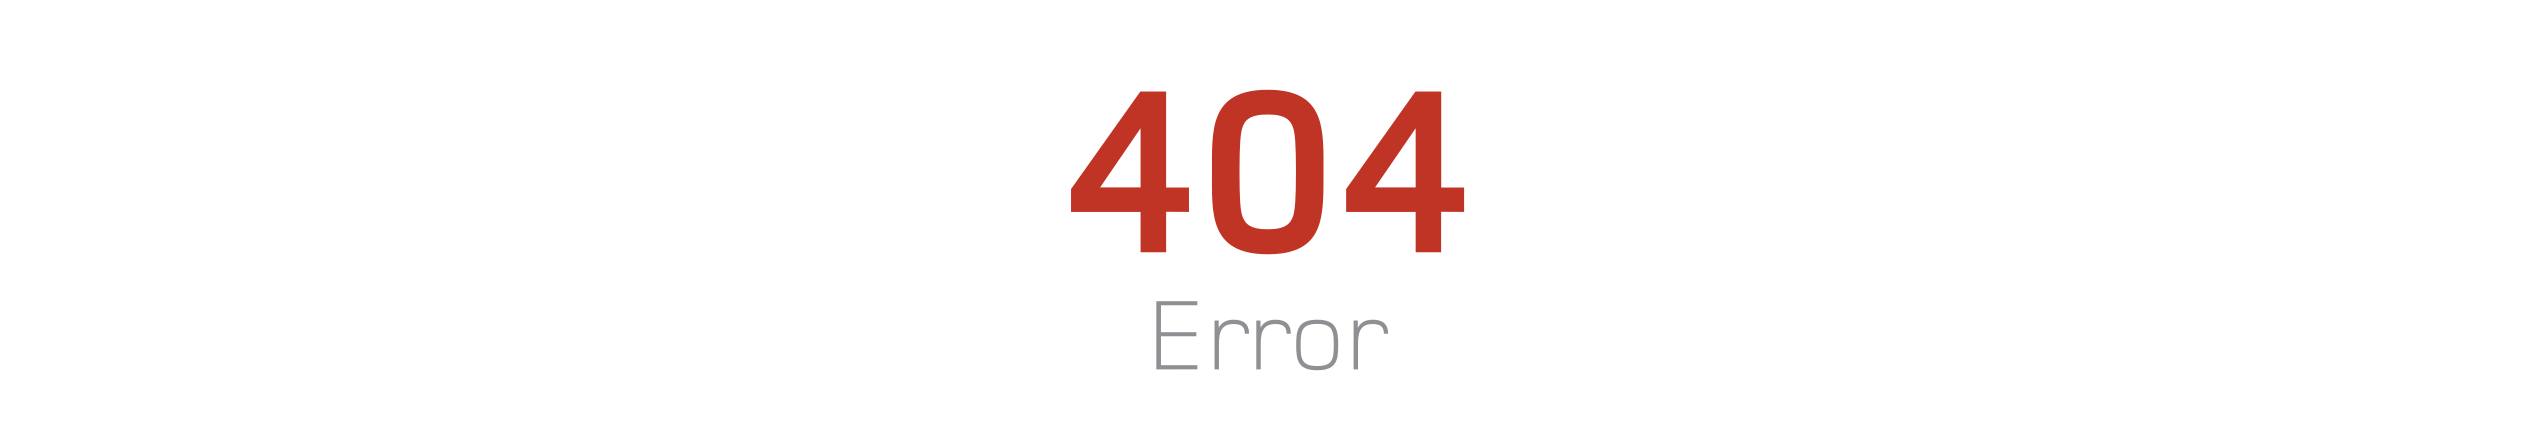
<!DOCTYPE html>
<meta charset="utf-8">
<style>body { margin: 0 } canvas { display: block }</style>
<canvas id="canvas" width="2535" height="441"></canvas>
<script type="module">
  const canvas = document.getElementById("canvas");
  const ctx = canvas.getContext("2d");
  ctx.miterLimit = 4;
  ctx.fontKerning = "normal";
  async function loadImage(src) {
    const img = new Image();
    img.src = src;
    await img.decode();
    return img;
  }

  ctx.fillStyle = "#ffffff";
  ctx.fillRect(0, 0, 2535, 441);
  ctx.drawImage(await loadImage("img1.png"), 1071, 89, 394, 282);
</script>
